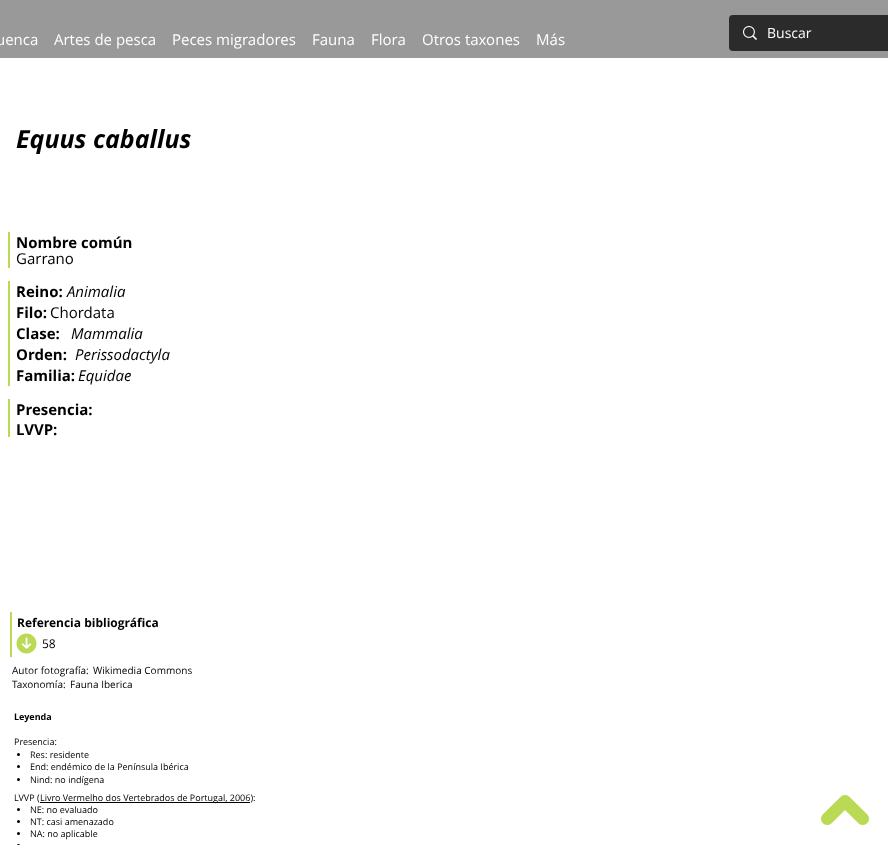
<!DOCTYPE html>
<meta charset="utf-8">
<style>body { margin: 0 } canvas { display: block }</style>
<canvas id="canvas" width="888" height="845"></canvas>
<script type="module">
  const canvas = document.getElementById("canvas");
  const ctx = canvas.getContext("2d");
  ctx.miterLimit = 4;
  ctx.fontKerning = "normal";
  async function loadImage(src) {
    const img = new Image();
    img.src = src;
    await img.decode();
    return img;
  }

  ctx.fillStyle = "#ffffff";
  ctx.fillRect(0, 0, 888, 845);
  ctx.fillStyle = "#999999";
  ctx.fillRect(0, 0, 888, 58);
  ctx.font = "15px Open Sans";
  ctx.fillStyle = "#ffffff";
  ctx.fillText("uenca", -4, 45);
  ctx.fillText("Artes de pesca", 54, 45);
  ctx.fillText("Peces migradores", 172, 45);
  ctx.fillText("Fauna", 312, 45);
  ctx.fillText("Flora", 371, 45);
  ctx.fillText("Otros taxones", 422, 45);
  ctx.fillText("Más", 536, 45);
  ctx.fillStyle = "#2b2b2b";
  ctx.beginPath();
  ctx.roundRect(729, 15, 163, 36, 4);
  ctx.fill();
  ctx.drawImage(await loadImage("img1.png"), 743, 26, 14, 14);
  ctx.font = "14px Open Sans";
  ctx.fillStyle = "#ffffff";
  ctx.fillText("Buscar", 767, 38);
  ctx.font = "italic bold 25px Open Sans";
  ctx.fillStyle = "#000000";
  ctx.fillText("Equus caballus", 16, 148);
  ctx.fillStyle = "#bada55";
  ctx.fillRect(8, 232, 2, 36);
  ctx.font = "bold 15px Open Sans";
  ctx.fillStyle = "#000000";
  ctx.fillText("Nombre común", 16, 248);
  ctx.font = "15px Open Sans";
  ctx.fillText("Garrano", 16, 264);
  ctx.fillStyle = "#bada55";
  ctx.fillRect(8, 281, 2, 105);
  ctx.font = "bold 15px Open Sans";
  ctx.fillStyle = "#000000";
  ctx.fillText("Reino:", 16, 297);
  ctx.font = "italic 15px Open Sans";
  ctx.fillText("Animalia", 67, 297);
  ctx.font = "15px Open Sans";
  ctx.fillText("Chordata", 50, 318);
  ctx.font = "italic 15px Open Sans";
  ctx.fillText("Perissodactyla", 75, 360);
  ctx.fillStyle = "#bada55";
  ctx.fillRect(10, 612, 2, 45);
  ctx.font = "bold 12px Open Sans";
  ctx.fillStyle = "#000000";
  ctx.fillText("Referencia bibliográfica", 17, 627);
  ctx.drawImage(await loadImage("img2.png"), 16, 633, 21, 21);
  ctx.font = "12px Open Sans";
  ctx.fillText("58", 42, 648);
  ctx.font = "10px Open Sans";
  ctx.fillText("Autor fotografía:", 12, 674);
  ctx.fillText("Wikimedia Commons", 93, 674);
  ctx.fillText("Taxonomía:", 12, 688);
  ctx.fillText("Fauna Iberica", 70, 688);
  ctx.font = "bold 9px Open Sans";
  ctx.fillText("Leyenda", 14, 720);
  ctx.font = "9px Open Sans";
  ctx.fillText("Presencia:", 14, 745);
  ctx.beginPath();
  ctx.arc(18.5, 754.5, 1.5, 0, Math.PI * 2);
  ctx.fill();
  ctx.fillText("Res: residente", 30, 758);
  ctx.beginPath();
  ctx.arc(18.5, 766.5, 1.5, 0, Math.PI * 2);
  ctx.fill();
  ctx.fillText("End: endémico de la Península Ibérica", 30, 770);
  ctx.beginPath();
  ctx.arc(18.5, 779.5, 1.5, 0, Math.PI * 2);
  ctx.fill();
  ctx.fillText("Nind: no indígena", 30, 783);
  ctx.font = "bold 15px Open Sans";
  ctx.fillText("Filo:", 16, 318);
  ctx.fillText("Clase:", 16, 339);
  ctx.font = "italic 15px Open Sans";
  ctx.fillText("Mammalia", 71, 339);
  ctx.font = "bold 15px Open Sans";
  ctx.fillText("Orden:", 16, 360);
  ctx.fillText("Familia:", 16, 381);
  ctx.font = "italic 15px Open Sans";
  ctx.fillText("Equidae", 78, 381);
  ctx.fillStyle = "#bada55";
  ctx.fillRect(8, 399, 2, 38);
  ctx.font = "bold 15px Open Sans";
  ctx.fillStyle = "#000000";
  ctx.fillText("Presencia:", 16, 415);
  ctx.fillText("LVVP:", 16, 435);
  ctx.font = "9px Open Sans";
  ctx.fillText("LVVP (", 14, 801);
  ctx.fillRect(40, 802, 210, 1);
  ctx.fillText("Livro Vermelho dos Vertebrados de Portugal, 2006):", 40, 801);
  ctx.beginPath();
  ctx.arc(18.5, 809.5, 1.5, 0, Math.PI * 2);
  ctx.fill();
  ctx.fillText("NE: no evaluado", 30, 813);
  ctx.beginPath();
  ctx.arc(18.5, 821.5, 1.5, 0, Math.PI * 2);
  ctx.fill();
  ctx.fillText("NT: casi amenazado", 30, 825);
  ctx.beginPath();
  ctx.arc(18.5, 833.5, 1.5, 0, Math.PI * 2);
  ctx.fill();
  ctx.fillText("NA: no aplicable", 30, 837);
  ctx.beginPath();
  ctx.arc(18.5, 845.5, 1.5, 0, Math.PI * 2);
  ctx.fill();
  ctx.drawImage(await loadImage("img3.png"), 821, 795, 48, 30);
</script>
